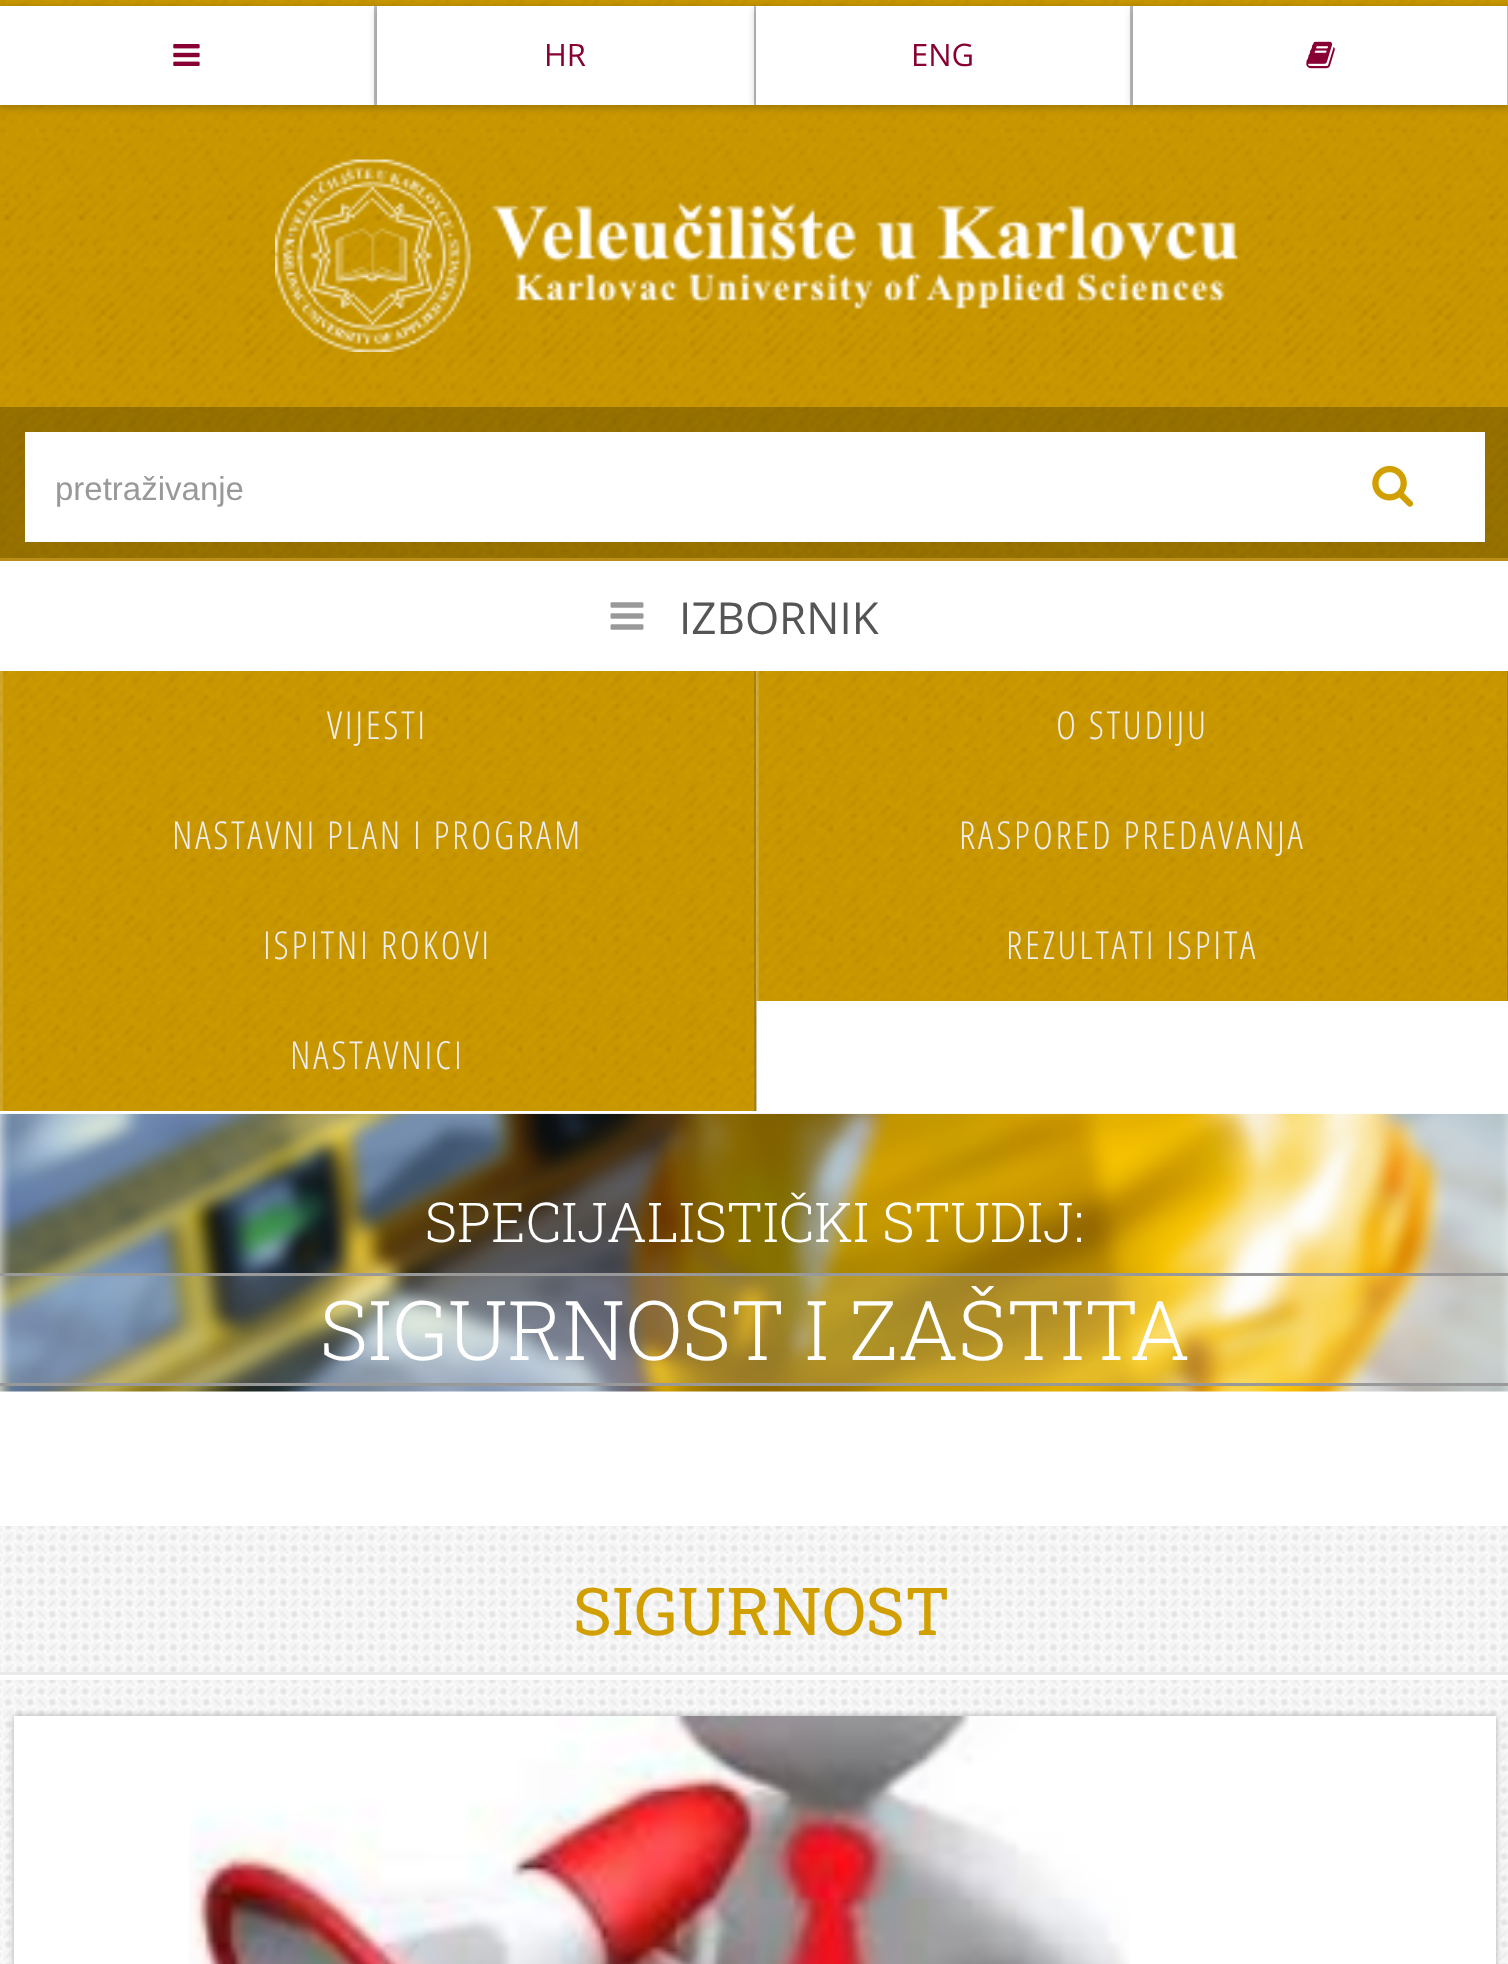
<!DOCTYPE html>
<meta charset="utf-8">
<style>body { margin: 0 } canvas { display: block }</style>
<canvas id="canvas" width="1508" height="1964"></canvas>
<script type="module">
  const canvas = document.getElementById("canvas");
  const ctx = canvas.getContext("2d");
  ctx.miterLimit = 4;
  ctx.fontKerning = "normal";
  async function loadImage(src) {
    const img = new Image();
    img.src = src;
    await img.decode();
    return img;
  }

  ctx.fillStyle = "#ffffff";
  ctx.fillRect(0, 0, 1508, 1964);
  ctx.drawImage(await loadImage("img1.png"), 0, 1526, 1508, 438);
  ctx.fillStyle = "#b88d1a";
  ctx.fillRect(0, 558, 1508, 3);
  ctx.drawImage(await loadImage("img2.png"), 0, 0, 1508, 559);
  ctx.fillStyle = "rgba(0, 0, 0, 0.25)";
  ctx.filter = "blur(4px)";
  ctx.beginPath();
  ctx.rect(0, 8, 377, 99);
  ctx.fill();
  ctx.filter = "none";
  ctx.fillStyle = "#ffffff";
  ctx.fillRect(0, 6, 374, 99);
  ctx.fillStyle = "#bfbfbf";
  ctx.fillRect(374, 6, 3, 99);
  ctx.drawImage(await loadImage("img3.png"), 173, 44, 27, 22);
  ctx.fillStyle = "rgba(0, 0, 0, 0.25)";
  ctx.filter = "blur(4px)";
  ctx.beginPath();
  ctx.rect(377, 8, 379, 99);
  ctx.fill();
  ctx.filter = "none";
  ctx.fillStyle = "#ffffff";
  ctx.fillRect(377, 6, 379, 99);
  ctx.fillStyle = "rgba(0, 0, 0, 0.25)";
  ctx.fillRect(754, 6, 2, 99);
  ctx.font = "31px Open Sans";
  ctx.fillStyle = "#880033";
  ctx.fillText("HR", 544, 66);
  ctx.fillStyle = "rgba(0, 0, 0, 0.25)";
  ctx.filter = "blur(4px)";
  ctx.beginPath();
  ctx.rect(756, 8, 377, 99);
  ctx.fill();
  ctx.filter = "none";
  ctx.fillStyle = "#ffffff";
  ctx.fillRect(756, 6, 374, 99);
  ctx.fillStyle = "#bfbfbf";
  ctx.fillRect(1130, 6, 3, 99);
  ctx.fillStyle = "#880033";
  ctx.fillText("ENG", 911, 66);
  ctx.fillStyle = "rgba(0, 0, 0, 0.25)";
  ctx.filter = "blur(4px)";
  ctx.beginPath();
  ctx.rect(1133, 8, 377, 99);
  ctx.fill();
  ctx.filter = "none";
  ctx.fillStyle = "#ffffff";
  ctx.fillRect(1133, 6, 374, 99);
  ctx.fillStyle = "#bfbfbf";
  ctx.fillRect(1507, 6, 1, 99);
  ctx.drawImage(await loadImage("img4.png"), 1306, 41, 29, 28);
  ctx.drawImage(await loadImage("img5.png"), 275, 159, 963, 193);
  ctx.fillStyle = "rgba(0, 0, 0, 0.25)";
  ctx.fillRect(0, 407, 1508, 151);
  ctx.fillStyle = "#ffffff";
  ctx.fillRect(25, 432, 1460, 110);
  ctx.font = "33px Liberation Sans";
  ctx.fillStyle = "#999999";
  ctx.fillText("pretraživanje", 55, 500);
  ctx.drawImage(await loadImage("img6.png"), 1372, 465, 42, 42);
  ctx.drawImage(await loadImage("img7.png"), 610, 602, 34, 28);
  ctx.font = "44px Open Sans";
  ctx.fillStyle = "#555555";
  ctx.fillText("IZBORNIK", 679, 634);
  ctx.drawImage(await loadImage("img8.png"), 0, 671, 757, 110);
  ctx.fillStyle = "rgba(0, 0, 0, 0.15)";
  ctx.fillRect(754, 671, 3, 110);
  ctx.fillStyle = "rgba(255, 255, 255, 0.15)";
  ctx.fillRect(0, 671, 3, 110);
  ctx.letterSpacing = "2.75px";
  ctx.font = "300 38.5px Open Sans Condensed";
  ctx.fillStyle = "#eeeeee";
  ctx.fillText("VIJESTI", 327, 739);
  ctx.drawImage(await loadImage("img9.png"), 756, 671, 752, 110);
  ctx.fillStyle = "rgba(0, 0, 0, 0.15)";
  ctx.fillRect(1507, 671, 1, 110);
  ctx.fillStyle = "rgba(255, 255, 255, 0.15)";
  ctx.fillRect(756, 671, 3, 110);
  ctx.fillStyle = "#eeeeee";
  ctx.fillText("O STUDIJU", 1056, 739);
  ctx.drawImage(await loadImage("img10.png"), 0, 781, 757, 110);
  ctx.fillStyle = "rgba(0, 0, 0, 0.15)";
  ctx.fillRect(754, 781, 3, 110);
  ctx.fillStyle = "rgba(255, 255, 255, 0.15)";
  ctx.fillRect(0, 781, 3, 110);
  ctx.fillStyle = "#eeeeee";
  ctx.fillText("NASTAVNI PLAN I PROGRAM", 172, 849);
  ctx.drawImage(await loadImage("img11.png"), 756, 781, 752, 110);
  ctx.fillStyle = "rgba(0, 0, 0, 0.15)";
  ctx.fillRect(1507, 781, 1, 110);
  ctx.fillStyle = "rgba(255, 255, 255, 0.15)";
  ctx.fillRect(756, 781, 3, 110);
  ctx.fillStyle = "#eeeeee";
  ctx.fillText("RASPORED PREDAVANJA", 959, 849);
  ctx.drawImage(await loadImage("img12.png"), 0, 891, 757, 110);
  ctx.fillStyle = "rgba(0, 0, 0, 0.15)";
  ctx.fillRect(754, 891, 3, 110);
  ctx.fillStyle = "rgba(255, 255, 255, 0.15)";
  ctx.fillRect(0, 891, 3, 110);
  ctx.fillStyle = "#eeeeee";
  ctx.fillText("ISPITNI ROKOVI", 263, 959);
  ctx.drawImage(await loadImage("img13.png"), 756, 891, 752, 110);
  ctx.fillStyle = "rgba(0, 0, 0, 0.15)";
  ctx.fillRect(1507, 891, 1, 110);
  ctx.fillStyle = "rgba(255, 255, 255, 0.15)";
  ctx.fillRect(756, 891, 3, 110);
  ctx.fillStyle = "#eeeeee";
  ctx.fillText("REZULTATI ISPITA", 1006, 959);
  ctx.drawImage(await loadImage("img14.png"), 0, 1001, 757, 110);
  ctx.fillStyle = "rgba(0, 0, 0, 0.15)";
  ctx.fillRect(754, 1001, 3, 110);
  ctx.fillStyle = "rgba(255, 255, 255, 0.15)";
  ctx.fillRect(0, 1001, 3, 110);
  ctx.fillStyle = "#eeeeee";
  ctx.fillText("NASTAVNICI", 290, 1069);
  ctx.drawImage(await loadImage("img15.png"), 0, 1113, 1508, 279);
  ctx.letterSpacing = "0px";
  ctx.font = "300 55px Roboto Slab";
  ctx.fillStyle = "#ffffff";
  ctx.fillText("SPECIJALISTIČKI STUDIJ:", 425, 1242);
  ctx.fillStyle = "rgba(255, 255, 255, 0.15)";
  ctx.fillRect(0, 1276, 1508, 107);
  ctx.fillStyle = "#999999";
  ctx.fillRect(0, 1273, 1508, 3);
  ctx.fillRect(0, 1383, 1508, 3);
  ctx.font = "300 82.5px Roboto Slab";
  ctx.fillStyle = "#ffffff";
  ctx.fillText("SIGURNOST I ZAŠTITA", 320, 1360);
  ctx.beginPath();
  ctx.moveTo(-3, 1554);
  ctx.lineTo(-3, 1680);
  ctx.lineTo(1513, 1680);
  ctx.lineTo(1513, 1554);
  ctx.lineTo(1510, 1554);
  ctx.lineTo(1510, 1675);
  ctx.lineTo(0, 1675);
  ctx.lineTo(0, 1554);
  ctx.closePath();
  ctx.fill();
  ctx.fillStyle = "#eaeaea";
  ctx.fillRect(0, 1672, 1508, 3);
  ctx.font = "66px Roboto Slab";
  ctx.fillStyle = "#d1a000";
  ctx.fillText("SIGURNOST", 573, 1635);
  ctx.fillStyle = "#aaaaaa";
  ctx.filter = "blur(3px)";
  ctx.beginPath();
  ctx.rect(14, 1716, 1482, 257);
  ctx.fill();
  ctx.filter = "none";
  ctx.fillStyle = "#ffffff";
  ctx.fillRect(14, 1716, 1482, 248);
  ctx.drawImage(await loadImage("img16.png"), 189, 1716, 941, 248);
</script>
